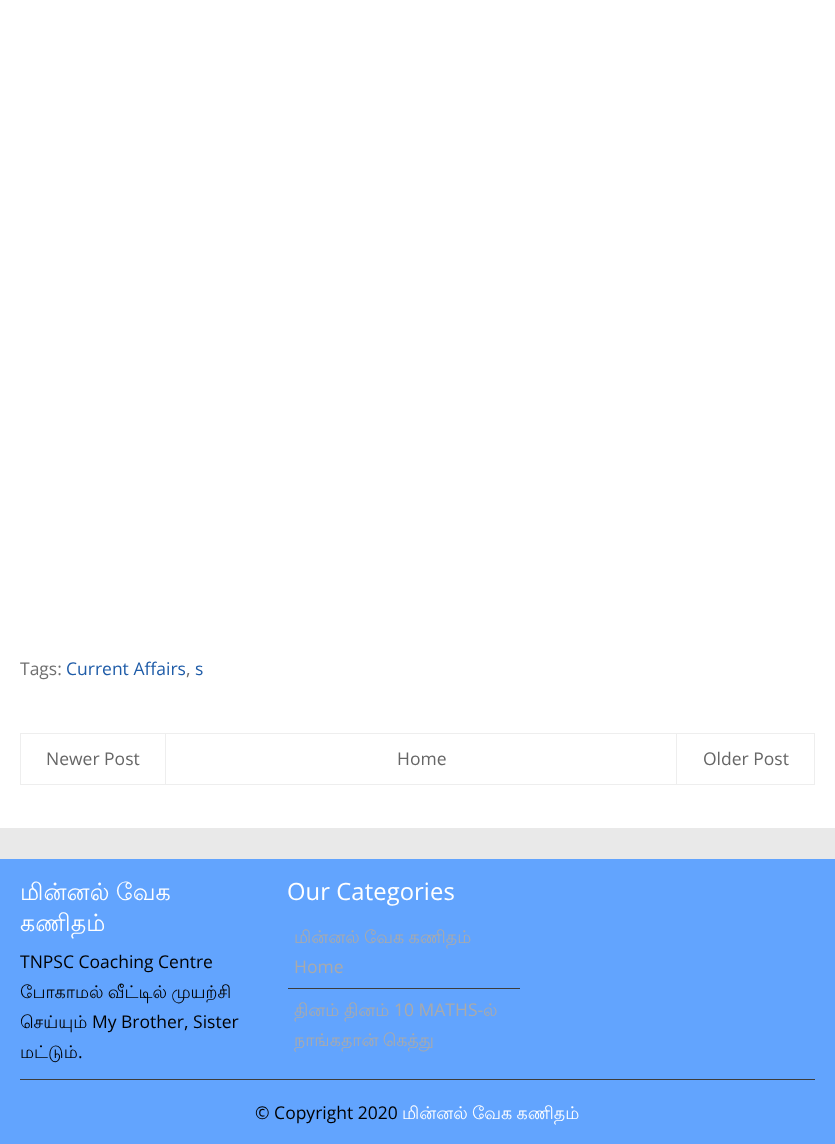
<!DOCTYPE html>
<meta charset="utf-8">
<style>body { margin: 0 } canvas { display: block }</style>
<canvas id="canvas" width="835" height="1144"></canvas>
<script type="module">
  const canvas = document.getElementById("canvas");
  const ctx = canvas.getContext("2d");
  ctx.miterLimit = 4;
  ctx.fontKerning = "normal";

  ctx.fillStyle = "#e9e9e9";
  ctx.fillRect(0, 0, 835, 1144);
  ctx.fillStyle = "#ffffff";
  ctx.fillRect(0, 0, 835, 828);
  ctx.font = "17.5px Open Sans";
  ctx.fillStyle = "#707070";
  ctx.fillText("Tags:", 20, 675);
  ctx.fillStyle = "#1f5ca8";
  ctx.fillText("Current Affairs", 66, 675);
  ctx.fillStyle = "#707070";
  ctx.fillText(",", 186, 675);
  ctx.fillStyle = "#1f5ca8";
  ctx.fillText("s", 195, 675);
  ctx.strokeStyle = "#eeeeee";
  ctx.strokeRect(20.5, 733.5, 794, 51);
  ctx.fillStyle = "#eeeeee";
  ctx.fillRect(165, 734, 1, 50);
  ctx.fillStyle = "#666666";
  ctx.fillText("Newer Post", 46, 765);
  ctx.fillText("Home", 397, 765);
  ctx.fillStyle = "#eeeeee";
  ctx.fillRect(676, 734, 1, 50);
  ctx.fillStyle = "#666666";
  ctx.fillText("Older Post", 703, 765);
  ctx.fillStyle = "#62a4fe";
  ctx.fillRect(0, 859, 835, 285);
  ctx.letterSpacing = "0.1px";
  ctx.wordSpacing = "-1px";
  ctx.font = "23.75px Lohit Tamil";
  ctx.fillStyle = "#ffffff";
  ctx.fillText("மின்னல் வேக", 20, 900);
  ctx.wordSpacing = "0px";
  ctx.fillText("கணிதம்", 20, 931);
  ctx.letterSpacing = "0px";
  ctx.font = "17.5px Open Sans";
  ctx.fillStyle = "#000000";
  ctx.fillText("TNPSC Coaching Centre", 20, 968);
  ctx.wordSpacing = "-1px";
  ctx.font = "17.5px Lohit Tamil";
  ctx.fillText("போகாமல் வீட்டில் முயற்சி", 20, 998);
  ctx.wordSpacing = "0px";
  ctx.fillText("செய்யும்", 20, 1028);
  ctx.font = "17.5px Open Sans";
  ctx.fillText("My Brother, Sister", 92, 1028);
  ctx.font = "17.5px Lohit Tamil";
  ctx.fillText("மட்டும்", 20, 1058);
  ctx.font = "17.5px Open Sans";
  ctx.fillText(".", 78, 1058);
  ctx.letterSpacing = "0.1px";
  ctx.font = "23.75px Open Sans";
  ctx.fillStyle = "#ffffff";
  ctx.fillText("Our Categories", 287, 900);
  ctx.fillStyle = "#3c3c3c";
  ctx.fillRect(288, 988, 232, 1);
  ctx.letterSpacing = "0px";
  ctx.wordSpacing = "-1px";
  ctx.font = "17.5px Lohit Tamil";
  ctx.fillStyle = "#aaaaaa";
  ctx.fillText("மின்னல் வேக கணிதம்", 294, 943);
  ctx.wordSpacing = "0px";
  ctx.font = "17.5px Open Sans";
  ctx.fillText("Home", 294, 973);
  ctx.font = "17.5px Lohit Tamil";
  ctx.fillText("தினம்", 294, 1016);
  ctx.fillText("தினம்", 344, 1016);
  ctx.font = "17.5px Open Sans";
  ctx.fillText("10 MATHS-", 394, 1016);
  ctx.font = "17.5px Lohit Tamil";
  ctx.fillText("ல்", 483, 1016);
  ctx.wordSpacing = "-1px";
  ctx.fillText("நாங்கதான் கெத்து", 294, 1046);
  ctx.fillStyle = "#3c3c3c";
  ctx.fillRect(20, 1079, 795, 1);
  ctx.wordSpacing = "0px";
  ctx.font = "17.5px Open Sans";
  ctx.fillStyle = "#000000";
  ctx.fillText("© Copyright 2020", 255, 1119);
  ctx.wordSpacing = "-1px";
  ctx.font = "17.5px Lohit Tamil";
  ctx.fillStyle = "#ffffff";
  ctx.fillText("மின்னல் வேக கணிதம்", 402, 1119);
</script>
